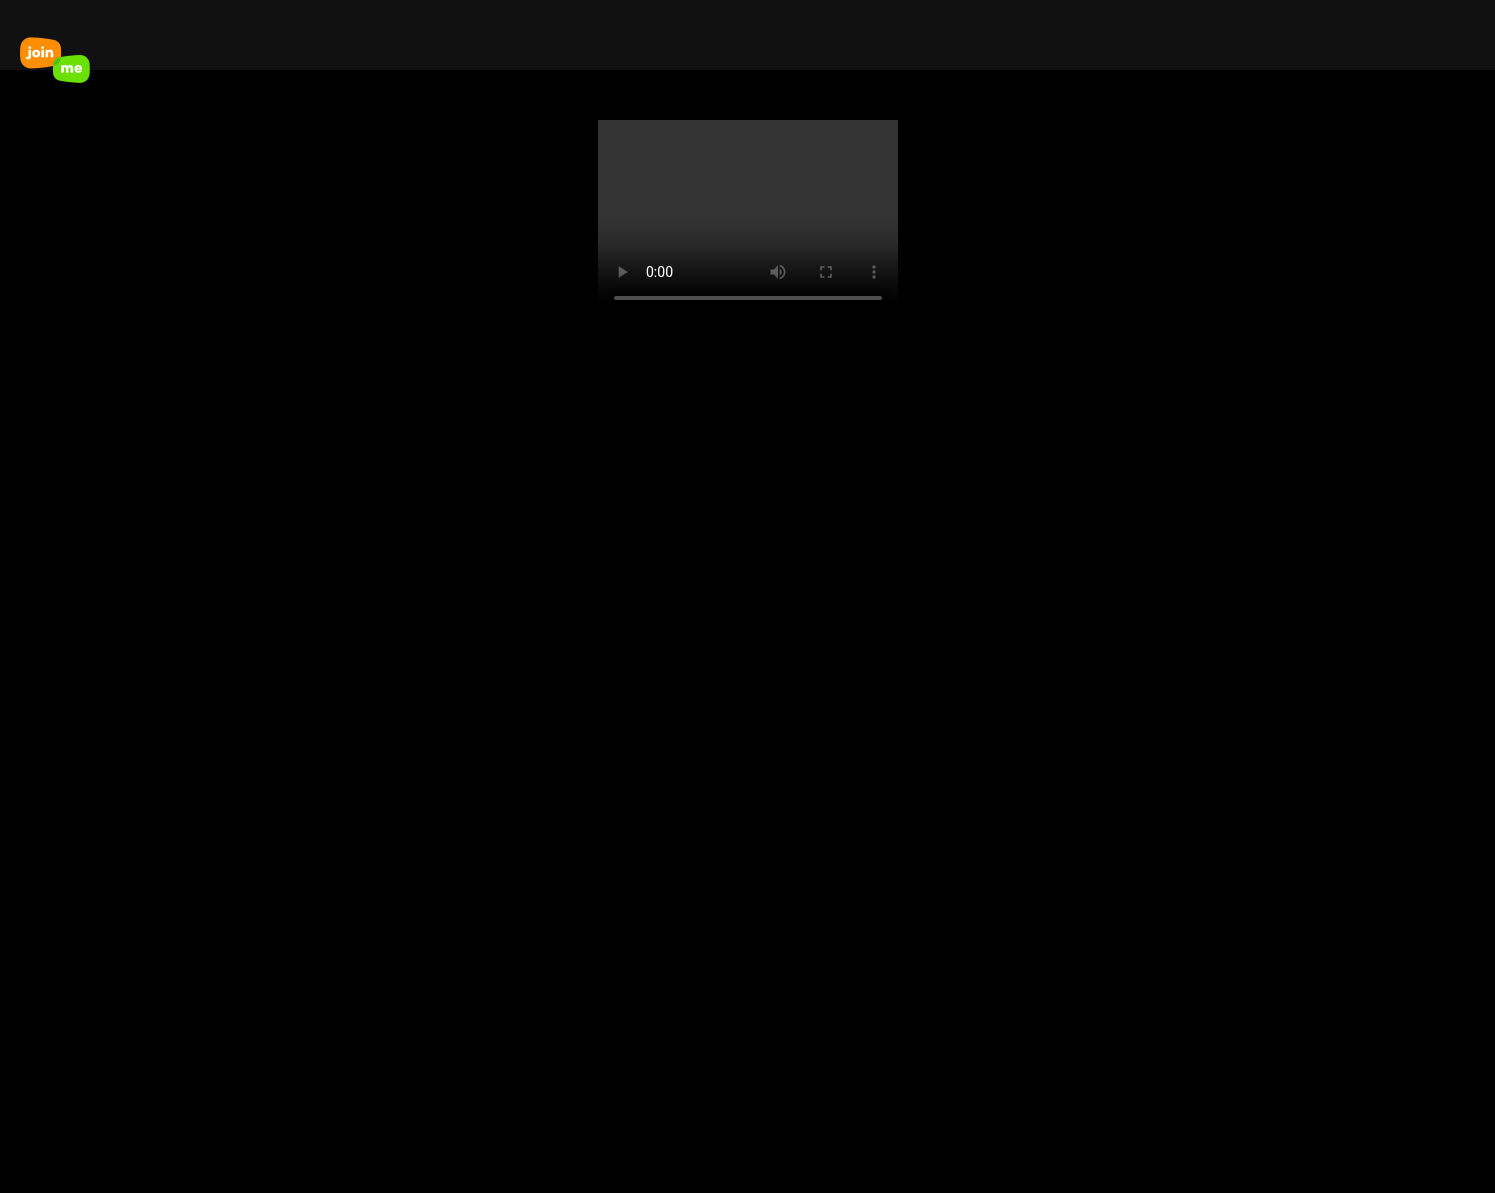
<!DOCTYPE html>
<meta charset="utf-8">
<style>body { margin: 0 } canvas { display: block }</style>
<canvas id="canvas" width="1495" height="1193"></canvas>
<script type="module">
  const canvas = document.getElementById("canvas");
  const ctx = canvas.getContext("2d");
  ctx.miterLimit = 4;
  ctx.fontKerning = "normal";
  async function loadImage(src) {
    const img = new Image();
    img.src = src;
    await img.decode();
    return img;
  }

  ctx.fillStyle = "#000000";
  ctx.fillRect(0, 0, 1495, 1193);
  ctx.fillStyle = "#111111";
  ctx.fillRect(0, 0, 1495, 70);
  ctx.drawImage(await loadImage("img1.png"), 20, 37, 70, 46);
  ctx.drawImage(await loadImage("img2.png"), 598, 120, 300, 180);
</script>
